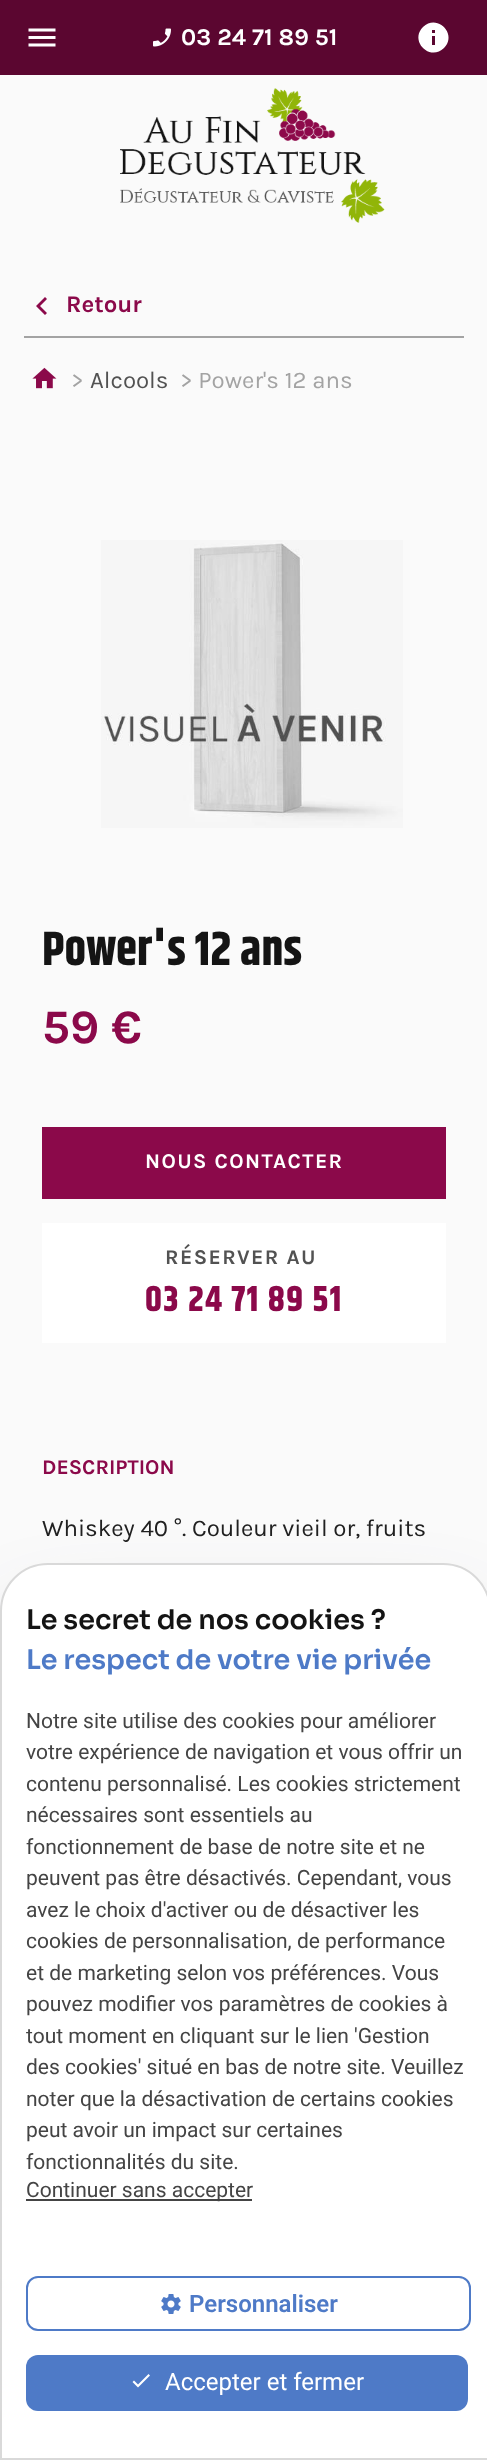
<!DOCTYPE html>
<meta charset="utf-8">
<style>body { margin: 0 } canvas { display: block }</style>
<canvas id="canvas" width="487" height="2460"></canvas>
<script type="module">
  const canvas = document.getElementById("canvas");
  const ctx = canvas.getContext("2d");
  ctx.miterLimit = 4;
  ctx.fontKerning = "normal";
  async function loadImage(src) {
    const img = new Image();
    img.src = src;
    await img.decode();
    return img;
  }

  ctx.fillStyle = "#fafafa";
  ctx.fillRect(0, 0, 487, 2460);
  ctx.fillStyle = "#5b0630";
  ctx.fillRect(0, 0, 487, 75);
  ctx.drawImage(await loadImage("img1.png"), 28, 28, 28, 19);
  ctx.drawImage(await loadImage("img2.png"), 153, 28, 18, 19);
  ctx.font = "bold 24px Karla";
  ctx.fillStyle = "#ffffff";
  ctx.fillText("03 24 71 89 51", 181, 45);
  ctx.beginPath();
  ctx.moveTo(435, 33);
  ctx.lineTo(435, 30);
  ctx.lineTo(432, 30);
  ctx.lineTo(432, 33);
  ctx.closePath();
  ctx.moveTo(435, 45);
  ctx.lineTo(435, 36);
  ctx.lineTo(432, 36);
  ctx.lineTo(432, 45);
  ctx.closePath();
  ctx.moveTo(423, 27);
  ctx.bezierCurveTo(437, 13, 458, 34, 444, 48);
  ctx.bezierCurveTo(430, 62, 409, 41, 423, 27);
  ctx.closePath();
  ctx.fill();
  ctx.drawImage(await loadImage("img3.png"), 120, 88, 265, 135);
  ctx.fillStyle = "#a3a3a3";
  ctx.fillRect(24, 336, 440, 2);
  ctx.fillStyle = "#8b094a";
  ctx.beginPath();
  ctx.moveTo(47, 299);
  ctx.lineTo(40, 306);
  ctx.lineTo(47, 313);
  ctx.lineTo(45, 315);
  ctx.lineTo(36, 306);
  ctx.lineTo(45, 297);
  ctx.closePath();
  ctx.fill();
  ctx.fillText("Retour", 66, 312);
  ctx.drawImage(await loadImage("img4.png"), 32, 367, 25, 22);
  ctx.font = "24px Karla";
  ctx.fillStyle = "#a3a3a3";
  ctx.fillText(">", 71, 388);
  ctx.fillStyle = "#525252";
  ctx.fillText("Alcools", 90, 388);
  ctx.fillStyle = "#a3a3a3";
  ctx.fillText("> Power's 12 ans", 180, 388);
  ctx.drawImage(await loadImage("img5.png"), 101, 540, 302, 288);
  ctx.font = "bold 48px Khand";
  ctx.fillStyle = "#141414";
  ctx.fillText("Power's 12 ans", 42, 965);
  ctx.font = "bold 48px Karla";
  ctx.fillStyle = "#8b094a";
  ctx.fillText("59 €", 42, 1043);
  ctx.fillRect(42, 1127, 404, 72);
  ctx.letterSpacing = "1.4px";
  ctx.font = "bold 21px Karla";
  ctx.fillStyle = "#ffffff";
  ctx.fillText("NOUS CONTACTER", 145, 1168);
  ctx.fillRect(42, 1223, 404, 120);
  ctx.fillStyle = "#525252";
  ctx.fillText("RÉSERVER AU", 165, 1264);
  ctx.font = "bold 36px Khand";
  ctx.fillStyle = "#8b094a";
  ctx.fillText("03 24 71 89 51", 145, 1311);
  ctx.letterSpacing = "0px";
  ctx.font = "bold 21px Karla";
  ctx.fillText("DESCRIPTION", 42, 1474);
  ctx.font = "24px Karla";
  ctx.fillStyle = "#212121";
  ctx.fillText("Whiskey 40 °. Couleur vieil or, fruits", 42, 1536);
  ctx.fillStyle = "rgba(50, 50, 93, 0.25)";
  ctx.filter = "blur(45px)";
  ctx.beginPath();
  ctx.roundRect(18, 1626, 455, 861, 30);
  ctx.fill();
  ctx.filter = "none";
  ctx.fillStyle = "#ffffff";
  ctx.beginPath();
  ctx.moveTo(48, 1564);
  ctx.lineTo(443, 1564);
  ctx.bezierCurveTo(469, 1564, 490, 1585, 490, 1611);
  ctx.lineTo(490, 2459);
  ctx.lineTo(1, 2459);
  ctx.lineTo(1, 1611);
  ctx.bezierCurveTo(1, 1585, 22, 1564, 48, 1564);
  ctx.closePath();
  ctx.fill();
  ctx.strokeStyle = "#d9d9d9";
  ctx.lineWidth = 2;
  ctx.stroke();
  ctx.font = "600 27px Sora";
  ctx.fillStyle = "#141414";
  ctx.fillText("Le secret de nos cookies ?", 26, 1629);
  ctx.fillStyle = "#4e7ac7";
  ctx.fillText("Le respect de votre vie privée", 26, 1669);
  ctx.font = "21px Roboto";
  ctx.fillStyle = "#444444";
  ctx.fillText("Notre site utilise des cookies pour améliorer", 26, 1728);
  ctx.fillText("votre expérience de navigation et vous offrir un", 26, 1759);
  ctx.fillText("contenu personnalisé. Les cookies strictement", 26, 1791);
  ctx.fillText("nécessaires sont essentiels au", 26, 1822);
  ctx.fillText("fonctionnement de base de notre site et ne", 26, 1854);
  ctx.fillText("peuvent pas être désactivés. Cependant, vous", 26, 1885);
  ctx.fillText("avez le choix d'activer ou de désactiver les", 26, 1917);
  ctx.fillText("cookies de personnalisation, de performance", 26, 1948);
  ctx.fillText("et de marketing selon vos préférences. Vous", 26, 1980);
  ctx.fillText("pouvez modifier vos paramètres de cookies à", 26, 2011);
  ctx.fillText("tout moment en cliquant sur le lien 'Gestion", 26, 2043);
  ctx.fillText("des cookies' situé en bas de notre site. Veuillez", 26, 2074);
  ctx.fillText("noter que la désactivation de certains cookies", 26, 2106);
  ctx.fillText("peut avoir un impact sur certaines", 26, 2137);
  ctx.fillText("fonctionnalités du site.", 26, 2169);
  ctx.fillRect(26, 2199, 226, 2);
  ctx.fillText("Continuer sans accepter", 26, 2197);
  ctx.beginPath();
  ctx.roundRect(27, 2277, 443, 53, 11);
  ctx.strokeStyle = "#4e7ac7";
  ctx.stroke();
  ctx.drawImage(await loadImage("img6.png"), 161, 2294, 20, 20);
  ctx.font = "600 24px Roboto";
  ctx.fillStyle = "#4e7ac7";
  ctx.fillText("Personnaliser", 189, 2312);
  ctx.beginPath();
  ctx.roundRect(26, 2355, 442, 56, 12);
  ctx.fill();
  ctx.fillStyle = "#ffffff";
  ctx.beginPath();
  ctx.moveTo(138, 2384.5);
  ctx.lineTo(148.5, 2374);
  ctx.lineTo(150, 2375.5);
  ctx.lineTo(138, 2387.5);
  ctx.lineTo(132.5, 2382);
  ctx.lineTo(134, 2380.5);
  ctx.closePath();
  ctx.fill();
  ctx.font = "24px Roboto";
  ctx.fillText("Accepter et fermer", 165, 2390);
</script>
